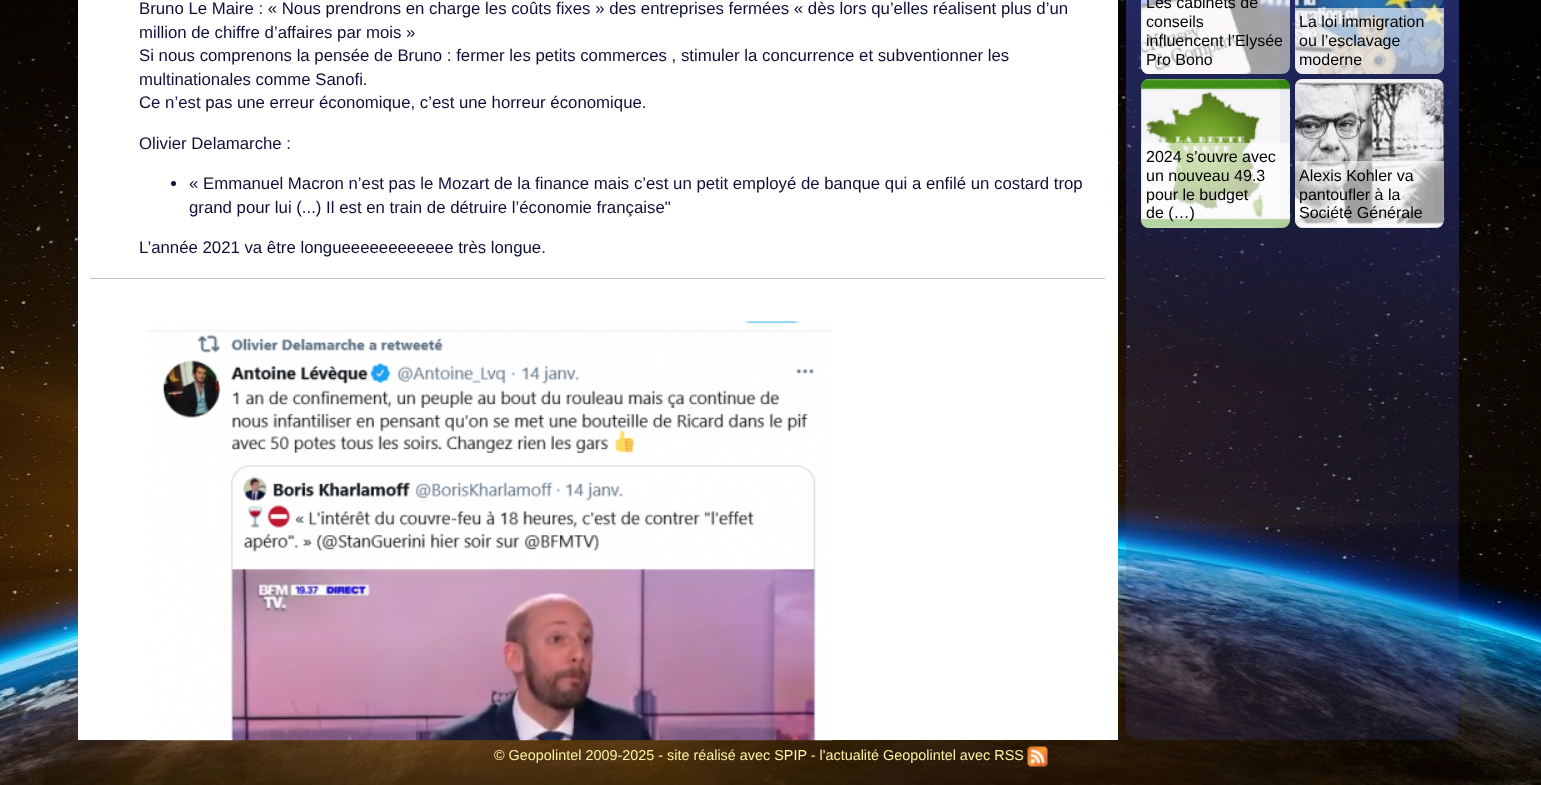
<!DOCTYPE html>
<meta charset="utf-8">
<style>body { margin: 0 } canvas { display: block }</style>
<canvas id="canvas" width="1541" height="785"></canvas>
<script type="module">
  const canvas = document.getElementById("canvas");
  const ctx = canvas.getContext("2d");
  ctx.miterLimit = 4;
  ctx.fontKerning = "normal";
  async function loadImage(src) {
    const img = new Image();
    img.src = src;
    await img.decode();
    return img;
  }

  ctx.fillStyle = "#ffffff";
  ctx.fillRect(0, 0, 1541, 785);
  ctx.drawImage(await loadImage("img1.png"), 0, 0, 1541, 785);
  ctx.fillRect(78, 0, 1040, 740);
  ctx.fillStyle = "#c1bebe";
  ctx.fillRect(90, 278, 1015, 1);
  ctx.font = "16.8px Liberation Sans";
  ctx.fillStyle = "#0e0f37";
  ctx.fillText("Bruno Le Maire : « Nous prendrons en charge les coûts fixes » des entreprises fermées « dès lors qu’elles réalisent plus d’un", 139, 14);
  ctx.fillText("million de chiffre d’affaires par mois »", 139, 38);
  ctx.fillText("Si nous comprenons la pensée de Bruno : fermer les petits commerces , stimuler la concurrence et subventionner les", 139, 61);
  ctx.fillText("multinationales comme Sanofi.", 139, 85);
  ctx.fillText("Ce n’est pas une erreur économique, c’est une horreur économique.", 139, 108);
  ctx.fillText("Olivier Delamarche :", 139, 149);
  ctx.beginPath();
  ctx.arc(173.5, 183.5, 2.5, 0, Math.PI * 2);
  ctx.fill();
  ctx.fillText("« Emmanuel Macron n’est pas le Mozart de la finance mais c’est un petit employé de banque qui a enfilé un costard trop", 189, 189);
  ctx.fillText("grand pour lui (...) Il est en train de détruire l’économie française\"", 189, 213);
  ctx.fillText("L’année 2021 va être longueeeeeeeeeeee très longue.", 139, 253);
  ctx.drawImage(await loadImage("img2.png"), 146, 321, 687, 420);
  ctx.fillStyle = "rgba(255, 255, 255, 0.56)";
  ctx.beginPath();
  ctx.roundRect(1141, -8, 139, 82, 8);
  ctx.fill();
  ctx.drawImage(await loadImage("img3.png"), 1141, 0, 149, 74);
  ctx.fillStyle = "rgba(255, 255, 255, 0.61)";
  ctx.beginPath();
  ctx.moveTo(1141, -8);
  ctx.lineTo(1290, -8);
  ctx.lineTo(1290, 66);
  ctx.bezierCurveTo(1290, 70.5, 1286.5, 74, 1282, 74);
  ctx.lineTo(1149, 74);
  ctx.bezierCurveTo(1144.5, 74, 1141, 70.5, 1141, 66);
  ctx.closePath();
  ctx.fill();
  ctx.font = "16px Liberation Sans";
  ctx.fillStyle = "#000000";
  ctx.fillText("Les cabinets de", 1146, 8);
  ctx.fillText("conseils", 1146, 27);
  ctx.fillText("influencent l’Elysée", 1146, 46);
  ctx.fillText("Pro Bono", 1146, 65);
  ctx.drawImage(await loadImage("img4.png"), 1295, 0, 149, 74);
  ctx.fillStyle = "rgba(255, 255, 255, 0.61)";
  ctx.beginPath();
  ctx.roundRect(1295, 8, 149, 66, [0, 0, 8, 8]);
  ctx.fill();
  ctx.fillStyle = "#000000";
  ctx.fillText("La loi immigration", 1299, 27);
  ctx.fillText("ou l’esclavage", 1299, 46);
  ctx.fillText("moderne", 1299, 65);
  ctx.fillStyle = "rgba(255, 255, 255, 0.56)";
  ctx.beginPath();
  ctx.roundRect(1141, 79, 139, 149, 8);
  ctx.fill();
  ctx.drawImage(await loadImage("img5.png"), 1141, 79, 149, 149);
  ctx.fillStyle = "rgba(255, 255, 255, 0.61)";
  ctx.beginPath();
  ctx.roundRect(1141, 143, 149, 85, [0, 0, 8, 8]);
  ctx.fill();
  ctx.fillStyle = "#000000";
  ctx.fillText("2024 s’ouvre avec", 1146, 162);
  ctx.fillText("un nouveau 49.3", 1146, 181);
  ctx.fillText("pour le budget", 1146, 200);
  ctx.fillText("de (…)", 1146, 218);
  ctx.fillStyle = "rgba(255, 255, 255, 0.56)";
  ctx.beginPath();
  ctx.roundRect(1295, 79, 139, 149, 8);
  ctx.fill();
  ctx.drawImage(await loadImage("img6.png"), 1295, 79, 149, 149);
  ctx.fillStyle = "rgba(255, 255, 255, 0.61)";
  ctx.beginPath();
  ctx.roundRect(1295, 161, 149, 67, [0, 0, 8, 8]);
  ctx.fill();
  ctx.fillStyle = "#000000";
  ctx.fillText("Alexis Kohler va", 1299, 181);
  ctx.fillText("pantoufler à la", 1299, 200);
  ctx.fillText("Société Générale", 1299, 218);
  ctx.font = "14.4px Liberation Sans";
  ctx.fillStyle = "#fdf1a3";
  ctx.fillText("© Geopolintel 2009-2025 - site réalisé avec SPIP - l'actualité Geopolintel avec RSS", 494, 760);
  ctx.drawImage(await loadImage("img7.png"), 1027, 746, 21, 21);
</script>
